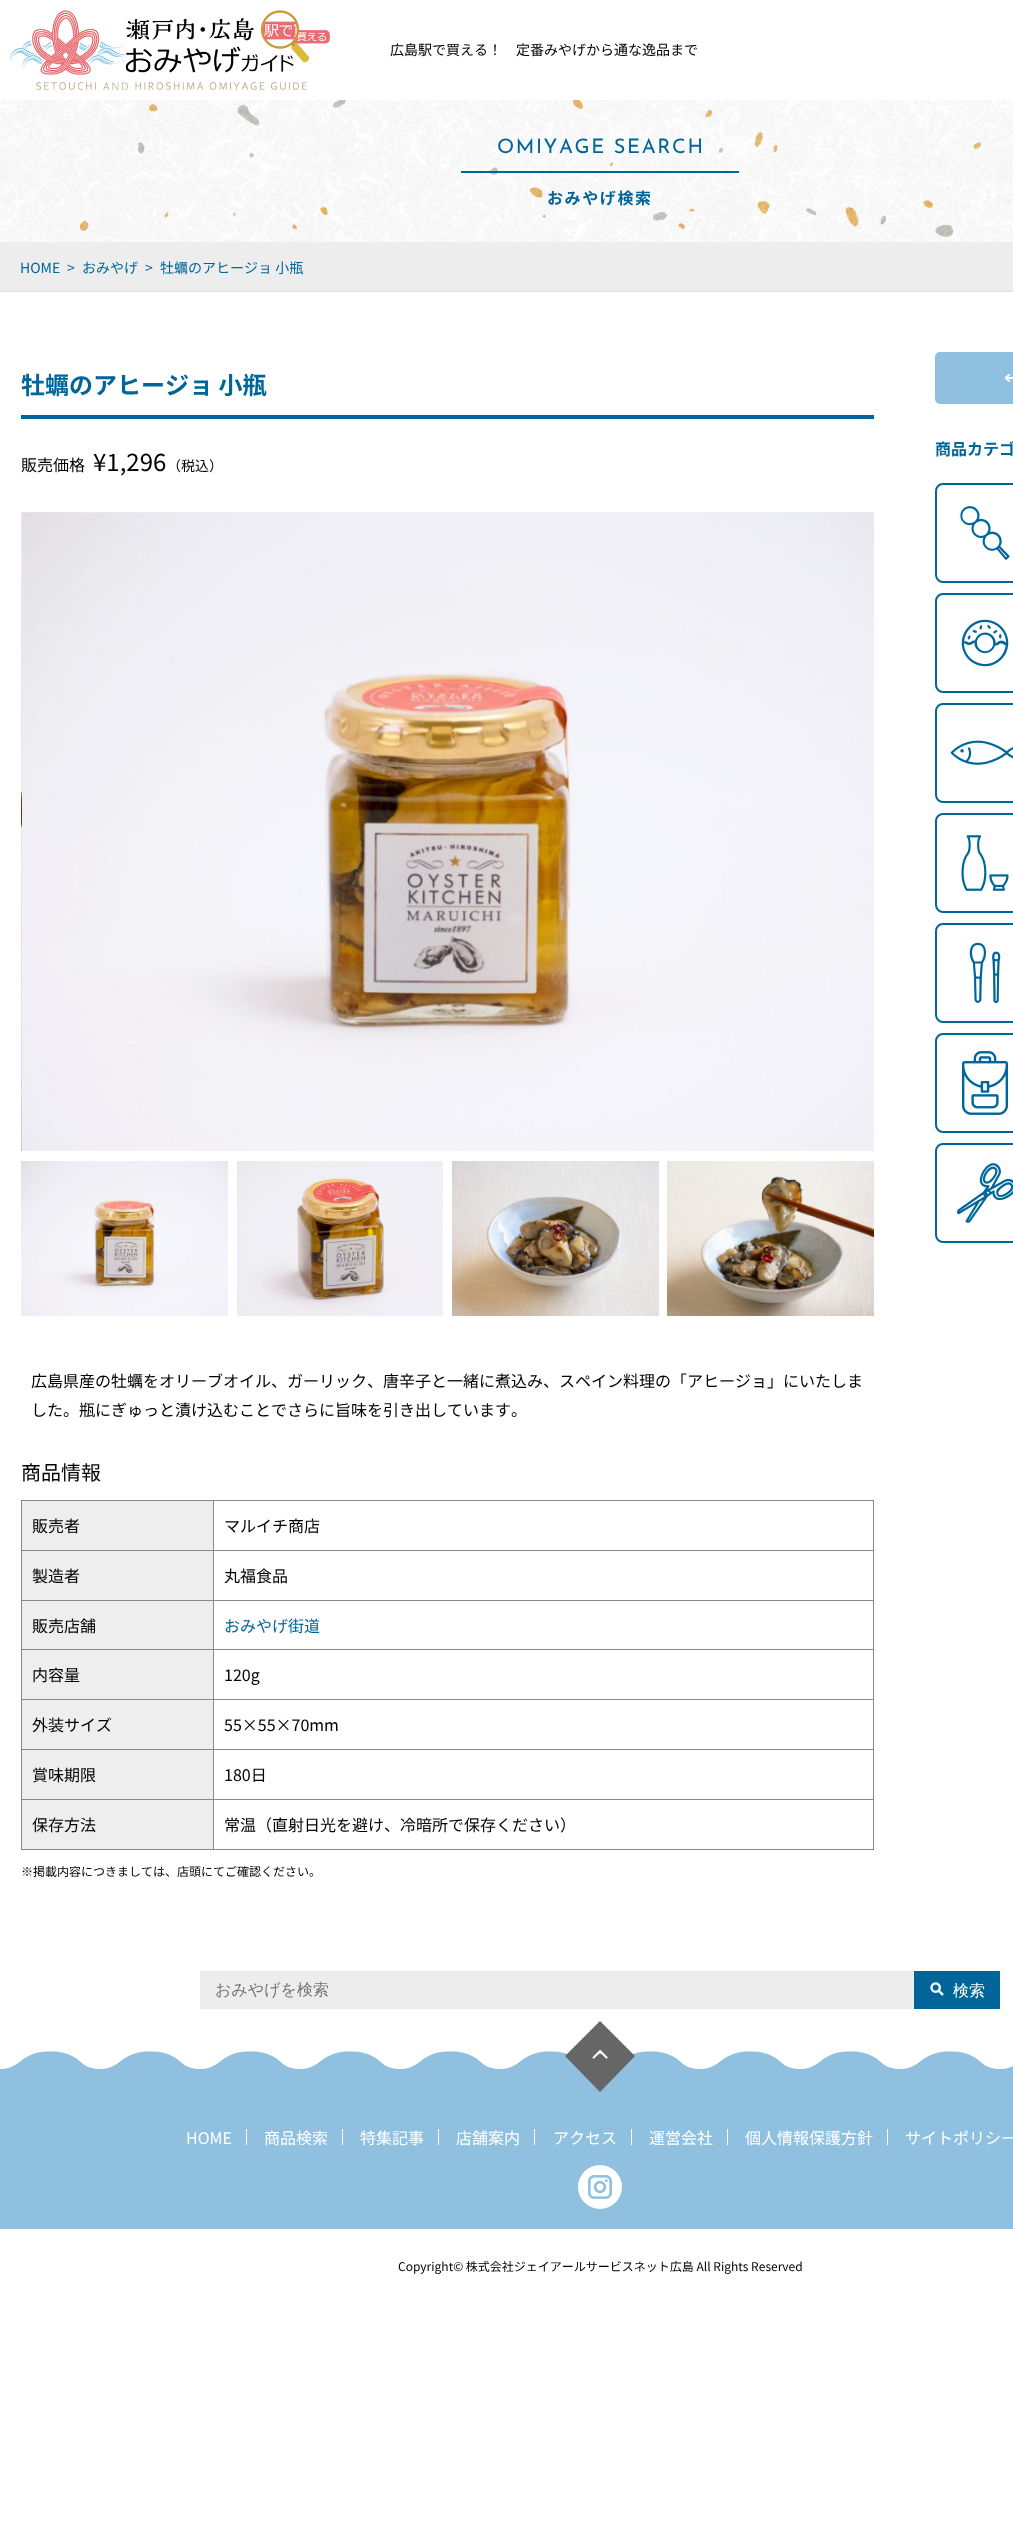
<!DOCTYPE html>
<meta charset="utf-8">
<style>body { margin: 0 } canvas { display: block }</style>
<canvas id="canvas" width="1013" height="2540"></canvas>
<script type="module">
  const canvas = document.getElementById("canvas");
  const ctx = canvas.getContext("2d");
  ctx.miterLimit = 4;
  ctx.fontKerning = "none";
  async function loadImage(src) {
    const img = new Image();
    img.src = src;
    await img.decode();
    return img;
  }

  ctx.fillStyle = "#ffffff";
  ctx.fillRect(0, 0, 1013, 2540);
  ctx.drawImage(await loadImage("img1.png"), 10, 10, 320, 80);
  ctx.font = "14px Noto Sans JP";
  ctx.fillStyle = "#000000";
  ctx.fillText("広島駅で買える！　定番みやげから通な逸品まで", 390, 55);
  ctx.drawImage(await loadImage("img2.png"), 0, 100, 1013, 142);
  ctx.fillStyle = "#006699";
  ctx.fillRect(461, 171, 278, 2);
  ctx.letterSpacing = "1.6px";
  ctx.font = "100 20px Josefin Sans";
  ctx.fillText("OMIYAGE SEARCH", 497, 153);
  ctx.font = "bold 16px Noto Sans JP";
  ctx.fillText("おみやげ検索", 547, 204);
  ctx.fillStyle = "#ededed";
  ctx.fillRect(0, 242, 1013, 49);
  ctx.fillStyle = "#dddddd";
  ctx.fillRect(0, 291, 1013, 1);
  ctx.letterSpacing = "0px";
  ctx.font = "14px Noto Sans JP";
  ctx.fillStyle = "#006699";
  ctx.fillText("HOME", 20, 273);
  ctx.fillText(">", 67, 273);
  ctx.fillText("おみやげ", 82, 273);
  ctx.fillText(">", 145, 273);
  ctx.fillText("牡蠣のアヒージョ 小瓶", 160, 273);
  ctx.fillRect(21, 415, 853, 4);
  ctx.font = "bold 24px Noto Sans JP";
  ctx.fillText("牡蠣のアヒージョ 小瓶", 21, 394);
  ctx.font = "16px Noto Sans JP";
  ctx.fillStyle = "#000000";
  ctx.fillText("販売価格", 21, 471);
  ctx.font = "24px Noto Sans JP";
  ctx.fillText("¥1,296", 93, 471);
  ctx.font = "14px Noto Sans JP";
  ctx.fillText("（税込）", 167, 471);
  ctx.drawImage(await loadImage("img3.png"), 21, 512, 1, 639);
  ctx.drawImage(await loadImage("img4.png"), 21, 512, 853, 639);
  ctx.drawImage(await loadImage("img5.png"), 21, 1161, 207, 155);
  ctx.drawImage(await loadImage("img6.png"), 237, 1161, 206, 155);
  ctx.drawImage(await loadImage("img7.png"), 452, 1161, 207, 155);
  ctx.drawImage(await loadImage("img8.png"), 667, 1161, 207, 155);
  ctx.font = "16px Noto Sans JP";
  ctx.fillText("広島県産の牡蠣をオリーブオイル、ガーリック、唐辛子と一緒に煮込み、ス", 31, 1387);
  ctx.fillText("ペイン料理の「アヒージョ」にいたしま", 575, 1387);
  ctx.fillText("した。瓶にぎゅっと漬け込むことでさらに旨味を引き出しています。", 31, 1416);
  ctx.font = "20px Noto Sans JP";
  ctx.fillText("商品情報", 21, 1480);
  ctx.fillStyle = "#eeeeee";
  ctx.fillRect(22, 1501, 191, 49);
  ctx.fillStyle = "#888888";
  ctx.fillRect(213, 1500, 661, 1);
  ctx.fillRect(213, 1550, 661, 1);
  ctx.fillRect(213, 1600, 661, 1);
  ctx.fillRect(213, 1649, 661, 1);
  ctx.fillRect(213, 1699, 661, 1);
  ctx.fillRect(213, 1749, 661, 1);
  ctx.fillRect(213, 1799, 661, 1);
  ctx.fillRect(873, 1799, 1, 51);
  ctx.fillRect(213, 1849, 661, 1);
  ctx.fillRect(213, 1799, 1, 51);
  ctx.fillRect(21, 1799, 193, 1);
  ctx.fillRect(213, 1749, 1, 51);
  ctx.fillRect(21, 1749, 193, 1);
  ctx.fillRect(213, 1699, 1, 51);
  ctx.fillRect(21, 1699, 193, 1);
  ctx.fillRect(213, 1649, 1, 51);
  ctx.fillRect(21, 1649, 193, 1);
  ctx.fillRect(213, 1600, 1, 50);
  ctx.fillRect(21, 1600, 193, 1);
  ctx.fillRect(213, 1550, 1, 51);
  ctx.fillRect(21, 1550, 193, 1);
  ctx.fillRect(213, 1500, 1, 51);
  ctx.fillRect(21, 1500, 193, 1);
  ctx.fillRect(21, 1849, 193, 1);
  ctx.fillRect(21, 1799, 1, 51);
  ctx.fillRect(21, 1749, 1, 51);
  ctx.fillRect(21, 1699, 1, 51);
  ctx.fillRect(21, 1649, 1, 51);
  ctx.fillRect(21, 1600, 1, 50);
  ctx.fillRect(21, 1550, 1, 51);
  ctx.fillRect(21, 1500, 1, 51);
  ctx.font = "16px Noto Sans JP";
  ctx.fillStyle = "#000000";
  ctx.fillText("販売者", 32, 1532);
  ctx.fillStyle = "#888888";
  ctx.fillRect(873, 1749, 1, 51);
  ctx.fillRect(873, 1699, 1, 51);
  ctx.fillRect(873, 1649, 1, 51);
  ctx.fillRect(873, 1600, 1, 50);
  ctx.fillRect(873, 1550, 1, 51);
  ctx.fillRect(873, 1500, 1, 51);
  ctx.fillStyle = "#000000";
  ctx.fillText("マルイチ商店", 224, 1532);
  ctx.fillStyle = "#eeeeee";
  ctx.fillRect(22, 1551, 191, 49);
  ctx.fillStyle = "#000000";
  ctx.fillText("製造者", 32, 1582);
  ctx.fillText("丸福食品", 224, 1582);
  ctx.fillStyle = "#eeeeee";
  ctx.fillRect(22, 1601, 191, 48);
  ctx.fillStyle = "#000000";
  ctx.fillText("販売店舗", 32, 1632);
  ctx.fillStyle = "#006699";
  ctx.fillText("おみやげ街道", 224, 1632);
  ctx.fillStyle = "#eeeeee";
  ctx.fillRect(22, 1650, 191, 49);
  ctx.fillStyle = "#000000";
  ctx.fillText("内容量", 32, 1681);
  ctx.fillText("120g", 224, 1681);
  ctx.fillStyle = "#eeeeee";
  ctx.fillRect(22, 1700, 191, 49);
  ctx.fillStyle = "#000000";
  ctx.fillText("外装サイズ", 32, 1731);
  ctx.fillText("55×55×70mm", 224, 1731);
  ctx.fillStyle = "#eeeeee";
  ctx.fillRect(22, 1750, 191, 49);
  ctx.fillStyle = "#000000";
  ctx.fillText("賞味期限", 32, 1781);
  ctx.fillText("180日", 224, 1781);
  ctx.fillStyle = "#eeeeee";
  ctx.fillRect(22, 1800, 191, 49);
  ctx.fillStyle = "#000000";
  ctx.fillText("保存方法", 32, 1831);
  ctx.fillText("常温（直射日光を避け、冷暗所で保存ください）", 224, 1831);
  ctx.font = "12px Noto Sans JP";
  ctx.fillText("※掲載内容につきましては、店頭にてご確認ください。", 21, 1876);
  ctx.fillStyle = "#90c0e0";
  ctx.beginPath();
  ctx.roundRect(935, 352, 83, 52, 5);
  ctx.fill();
  ctx.drawImage(await loadImage("img9.png"), 1004, 374, 9, 8);
  ctx.font = "bold 16px Noto Sans JP";
  ctx.fillStyle = "#006699";
  ctx.fillText("商品カテゴ", 935, 455);
  ctx.beginPath();
  ctx.roundRect(936, 484, 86, 98, 7);
  ctx.strokeStyle = "#006699";
  ctx.lineWidth = 2;
  ctx.stroke();
  ctx.drawImage(await loadImage("img10.png"), 960, 506, 50, 54);
  ctx.beginPath();
  ctx.roundRect(936, 594, 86, 98, 7);
  ctx.stroke();
  ctx.drawImage(await loadImage("img11.png"), 961, 619, 48, 48);
  ctx.beginPath();
  ctx.roundRect(936, 704, 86, 98, 7);
  ctx.stroke();
  ctx.drawImage(await loadImage("img12.png"), 950, 740, 63, 25);
  ctx.beginPath();
  ctx.roundRect(936, 814, 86, 98, 7);
  ctx.stroke();
  ctx.drawImage(await loadImage("img13.png"), 961, 835, 48, 56);
  ctx.beginPath();
  ctx.roundRect(936, 924, 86, 98, 7);
  ctx.stroke();
  ctx.drawImage(await loadImage("img14.png"), 969, 942, 32, 62);
  ctx.beginPath();
  ctx.roundRect(936, 1034, 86, 98, 7);
  ctx.stroke();
  ctx.drawImage(await loadImage("img15.png"), 961, 1051, 48, 64);
  ctx.beginPath();
  ctx.roundRect(936, 1144, 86, 98, 7);
  ctx.stroke();
  ctx.drawImage(await loadImage("img16.png"), 957, 1163, 56, 60);
  ctx.fillStyle = "#ededed";
  ctx.fillRect(200, 1971, 714, 38);
  ctx.font = "500 16px WenQuanYi Zen Hei";
  ctx.fillStyle = "#757575";
  ctx.fillText("おみやげを検索", 215, 1995);
  ctx.fillStyle = "#006699";
  ctx.fillRect(914, 1971, 86, 38);
  ctx.drawImage(await loadImage("img17.png"), 930, 1982, 14, 14);
  ctx.fillStyle = "#ffffff";
  ctx.fillText("検索", 953, 1996);
  ctx.drawImage(await loadImage("img18.png"), 2, 2051, 1011, 18);
  ctx.fillStyle = "#90c0e0";
  ctx.fillRect(0, 2069, 1013, 160);
  ctx.fillStyle = "#666666";
  ctx.beginPath();
  ctx.moveTo(565, 2056);
  ctx.lineTo(600, 2021);
  ctx.lineTo(635, 2056);
  ctx.lineTo(600, 2092);
  ctx.closePath();
  ctx.fill();
  ctx.drawImage(await loadImage("img19.png"), 592, 2049, 16, 10);
  ctx.font = "16px Noto Sans JP";
  ctx.fillStyle = "#ffffff";
  ctx.fillText("HOME", 186, 2144);
  ctx.fillRect(246, 2129, 1, 16);
  ctx.fillText("商品検索", 264, 2144);
  ctx.fillRect(342, 2129, 1, 16);
  ctx.fillText("特集記事", 360, 2144);
  ctx.fillRect(438, 2129, 1, 16);
  ctx.fillText("店舗案内", 456, 2144);
  ctx.fillRect(534, 2129, 1, 16);
  ctx.fillText("アクセス", 553, 2144);
  ctx.fillRect(631, 2129, 1, 16);
  ctx.fillText("運営会社", 649, 2144);
  ctx.fillRect(727, 2129, 1, 16);
  ctx.fillText("個人情報保護方針", 745, 2144);
  ctx.fillRect(887, 2129, 1, 16);
  ctx.fillText("サイトポリシー", 905, 2144);
  ctx.beginPath();
  ctx.arc(600, 2187, 22, 0, Math.PI * 2);
  ctx.fill();
  ctx.drawImage(await loadImage("img20.png"), 588, 2175, 24, 24);
  ctx.font = "12px Noto Sans JP";
  ctx.fillStyle = "#000000";
  ctx.fillText("Copyright© 株式会社ジェイアールサービスネット広島 All Rights Reserved", 398, 2271);
</script>
